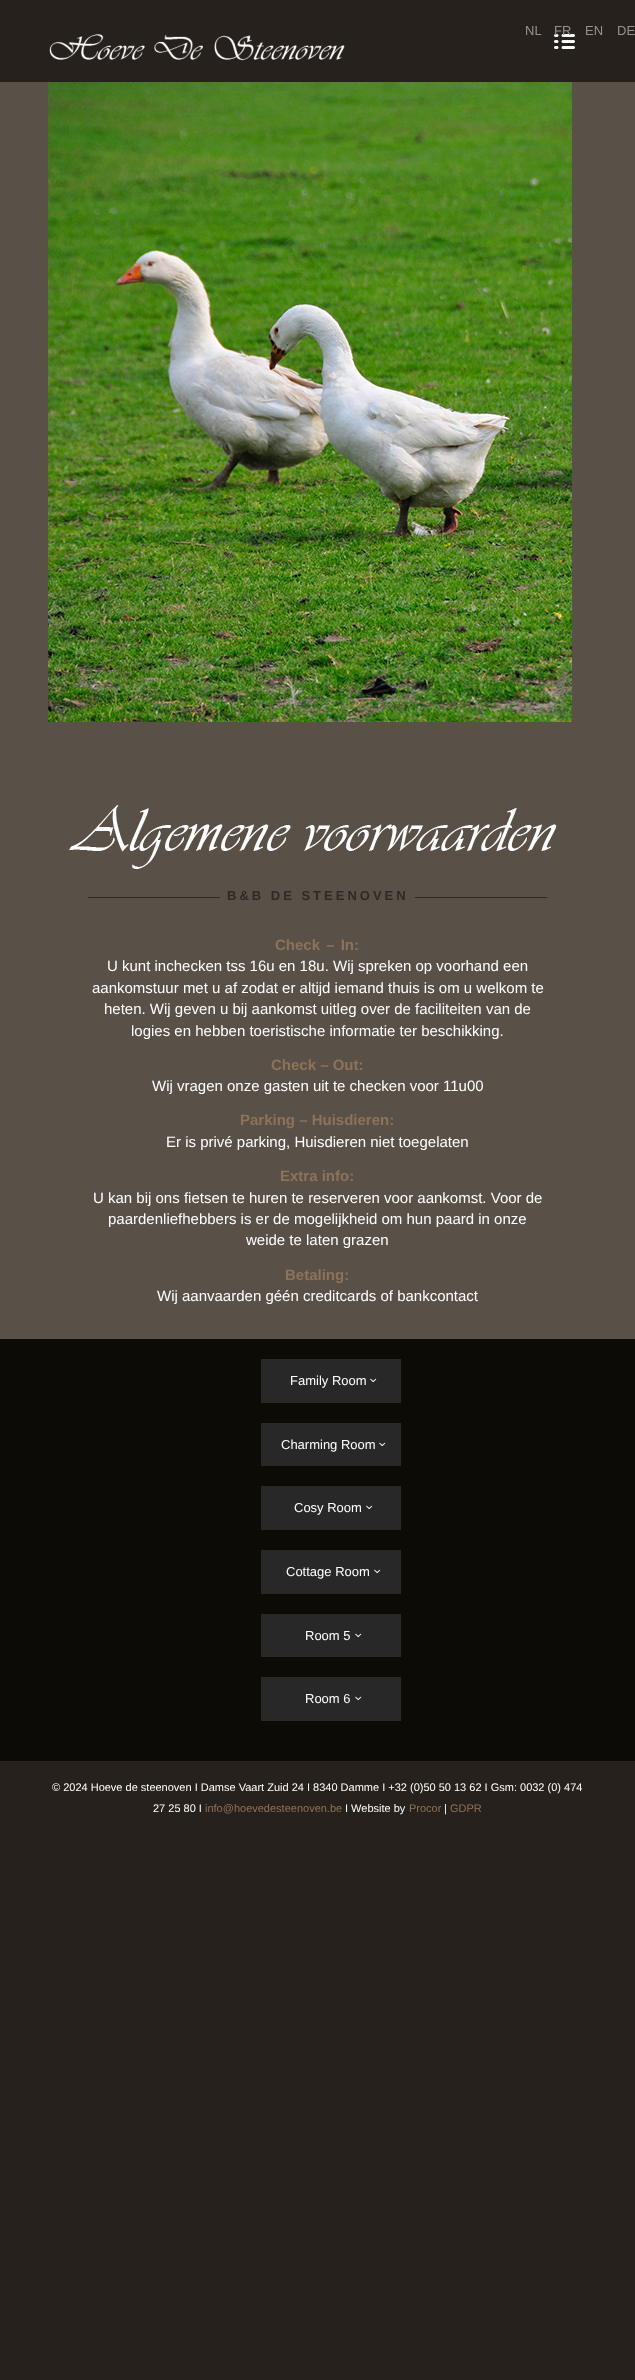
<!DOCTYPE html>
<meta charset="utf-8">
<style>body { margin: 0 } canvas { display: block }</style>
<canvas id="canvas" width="635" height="2380"></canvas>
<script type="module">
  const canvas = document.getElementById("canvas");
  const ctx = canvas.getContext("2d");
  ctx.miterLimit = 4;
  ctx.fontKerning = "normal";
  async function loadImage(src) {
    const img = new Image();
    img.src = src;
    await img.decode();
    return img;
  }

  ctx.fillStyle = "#26211c";
  ctx.fillRect(0, 0, 635, 2380);
  ctx.font = "13px Liberation Sans";
  ctx.fillStyle = "#93908e";
  ctx.fillText("NL", 525, 35);
  ctx.drawImage(await loadImage("img2.png"), 554, 34, 21, 15);
  ctx.fillText("FR", 554, 35);
  ctx.fillText("EN", 585, 35);
  ctx.fillText("DE", 617, 35);
  ctx.drawImage(await loadImage("img1.png"), 49, 34, 296, 27);
  ctx.fillStyle = "#595047";
  ctx.fillRect(0, 82, 635, 1257);
  ctx.drawImage(await loadImage("img3.png"), 48, 82, 524, 640);
  ctx.drawImage(await loadImage("img4.png"), 69, 805, 488, 64);
  ctx.fillStyle = "#302927";
  ctx.fillRect(88, 897, 132, 1);
  ctx.letterSpacing = "3px";
  ctx.font = "bold 13px Liberation Sans";
  ctx.fillText("B&B DE STEENOVEN", 227, 900);
  ctx.fillRect(415, 897, 132, 1);
  ctx.letterSpacing = "0px";
  ctx.wordSpacing = "2px";
  ctx.font = "bold 15px Liberation Sans";
  ctx.fillStyle = "#8e7359";
  ctx.fillText("Check – In:", 275, 950);
  ctx.wordSpacing = "0px";
  ctx.font = "15px Liberation Sans";
  ctx.fillStyle = "#ffffff";
  ctx.fillText("U kunt inchecken tss 16u en 18u. Wij spreken op voorhand een", 107, 971);
  ctx.fillText("aankomstuur met u af zodat er altijd iemand thuis is om u welkom te", 92, 993);
  ctx.fillText("heten. Wij geven u bij aankomst uitleg over de faciliteiten van de", 104, 1014);
  ctx.fillText("logies en hebben toeristische informatie ter beschikking.", 131, 1036);
  ctx.font = "bold 15px Liberation Sans";
  ctx.fillStyle = "#8e7359";
  ctx.fillText("Check – Out:", 271, 1070);
  ctx.font = "15px Liberation Sans";
  ctx.fillStyle = "#ffffff";
  ctx.fillText("Wij vragen onze gasten uit te checken voor 11u00", 152, 1091);
  ctx.font = "bold 15px Liberation Sans";
  ctx.fillStyle = "#8e7359";
  ctx.fillText("Parking – Huisdieren:", 240, 1125);
  ctx.font = "15px Liberation Sans";
  ctx.fillStyle = "#ffffff";
  ctx.fillText("Er is privé parking, Huisdieren niet toegelaten", 166, 1147);
  ctx.font = "bold 15px Liberation Sans";
  ctx.fillStyle = "#8e7359";
  ctx.fillText("Extra info:", 280, 1181);
  ctx.font = "15px Liberation Sans";
  ctx.fillStyle = "#ffffff";
  ctx.fillText("U kan bij ons fietsen te huren te reserveren voor aankomst. Voor de", 93, 1203);
  ctx.fillText("paardenliefhebbers is er de mogelijkheid om hun paard in onze", 108, 1224);
  ctx.fillText("weide te laten grazen", 246, 1245);
  ctx.font = "bold 15px Liberation Sans";
  ctx.fillStyle = "#8e7359";
  ctx.fillText("Betaling:", 285, 1280);
  ctx.font = "15px Liberation Sans";
  ctx.fillStyle = "#ffffff";
  ctx.fillText("Wij aanvaarden géén creditcards of bankcontact", 157, 1301);
  ctx.fillStyle = "#0d0b05";
  ctx.fillRect(0, 1339, 635, 422);
  ctx.fillStyle = "#282828";
  ctx.fillRect(261, 1359, 140, 44);
  ctx.font = "13px Liberation Sans";
  ctx.fillStyle = "#ffffff";
  ctx.fillText("Family Room", 290, 1385);
  ctx.drawImage(await loadImage("img5.png"), 370, 1378, 7, 5);
  ctx.fillStyle = "#282828";
  ctx.fillRect(261, 1423, 140, 43);
  ctx.fillStyle = "#ffffff";
  ctx.fillText("Charming Room", 281, 1449);
  ctx.drawImage(await loadImage("img5.png"), 379, 1442, 7, 5);
  ctx.fillStyle = "#282828";
  ctx.fillRect(261, 1486, 140, 44);
  ctx.fillStyle = "#ffffff";
  ctx.fillText("Cosy Room", 294, 1512);
  ctx.drawImage(await loadImage("img5.png"), 366, 1505, 7, 5);
  ctx.fillStyle = "#282828";
  ctx.fillRect(261, 1550, 140, 44);
  ctx.fillStyle = "#ffffff";
  ctx.fillText("Cottage Room", 286, 1576);
  ctx.drawImage(await loadImage("img5.png"), 374, 1569, 7, 5);
  ctx.fillStyle = "#282828";
  ctx.fillRect(261, 1614, 140, 43);
  ctx.fillStyle = "#ffffff";
  ctx.fillText("Room 5", 305, 1640);
  ctx.drawImage(await loadImage("img5.png"), 355, 1633, 7, 5);
  ctx.fillStyle = "#282828";
  ctx.fillRect(261, 1677, 140, 44);
  ctx.fillStyle = "#ffffff";
  ctx.fillText("Room 6", 305, 1703);
  ctx.drawImage(await loadImage("img5.png"), 355, 1696, 7, 5);
  ctx.font = "11px Liberation Sans";
  ctx.fillText("© 2024 Hoeve de steenoven I Damse Vaart Zuid 24 I 8340 Damme I +32 (0)50 50 13 62 I Gsm: 0032 (0) 474", 52, 1791);
  ctx.fillText("27 25 80 I", 153, 1812);
  ctx.fillStyle = "#8e7359";
  ctx.fillText("info@hoevedesteenoven.be", 205, 1812);
  ctx.fillStyle = "#ffffff";
  ctx.fillText("I Website by", 345, 1812);
  ctx.fillStyle = "#8e7359";
  ctx.fillText("Procor", 409, 1812);
  ctx.fillStyle = "#ffffff";
  ctx.fillText("|", 444, 1812);
  ctx.fillStyle = "#8e7359";
  ctx.fillText("GDPR", 450, 1812);
</script>
